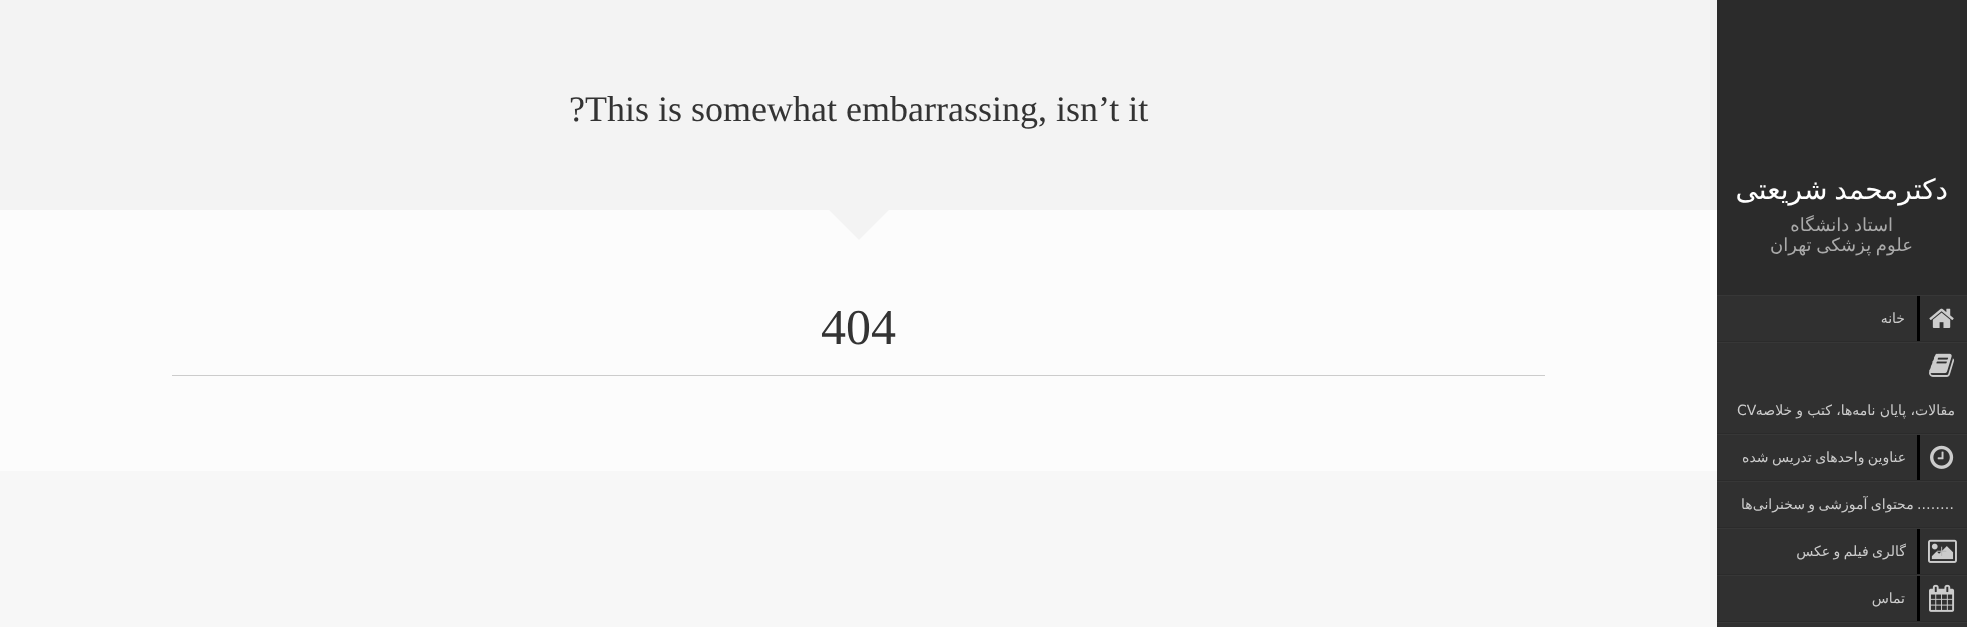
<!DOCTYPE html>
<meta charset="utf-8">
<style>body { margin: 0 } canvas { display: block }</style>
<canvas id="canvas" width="1967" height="627"></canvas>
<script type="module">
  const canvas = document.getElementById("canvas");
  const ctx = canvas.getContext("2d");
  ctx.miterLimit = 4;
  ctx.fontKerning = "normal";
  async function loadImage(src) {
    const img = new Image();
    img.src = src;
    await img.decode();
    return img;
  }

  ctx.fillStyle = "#2b2b2b";
  ctx.fillRect(0, 0, 1967, 627);
  ctx.wordSpacing = "-2px";
  ctx.direction = "rtl";
  ctx.font = "28px DejaVu Sans";
  ctx.fillStyle = "#ffffff";
  ctx.fillText("دکترمحمد شریعتی", 1948, 199);
  ctx.wordSpacing = "-1px";
  ctx.font = "18px DejaVu Sans";
  ctx.fillStyle = "#aaaaaa";
  ctx.fillText("استاد دانشگاه", 1893, 231);
  ctx.fillText("علوم پزشکی تهران", 1913, 251);
  ctx.fillStyle = "#303030";
  ctx.fillRect(1717, 296, 250, 45);
  ctx.fillStyle = "#373737";
  ctx.fillRect(1717, 295, 250, 1);
  ctx.drawImage(await loadImage("img1.png"), 1929, 308, 25, 20);
  ctx.fillStyle = "#000000";
  ctx.fillRect(1917, 296, 3, 45);
  ctx.wordSpacing = "0px";
  ctx.font = "14px DejaVu Sans";
  ctx.fillStyle = "#cccccc";
  ctx.fillText("خانه", 1905, 323);
  ctx.fillStyle = "#303030";
  ctx.fillRect(1717, 343, 250, 90);
  ctx.fillStyle = "#373737";
  ctx.fillRect(1717, 342, 250, 1);
  ctx.drawImage(await loadImage("img2.png"), 1929, 353, 25, 24);
  ctx.wordSpacing = "-0.25px";
  ctx.fillStyle = "#cccccc";
  ctx.fillText("مقالات، پایان نامه‌ها، کتب و خلاصه", 1955, 415);
  ctx.wordSpacing = "0px";
  ctx.direction = "ltr";
  ctx.fillText("CV", 1737, 415);
  ctx.fillStyle = "#303030";
  ctx.fillRect(1717, 435, 250, 45);
  ctx.fillStyle = "#373737";
  ctx.fillRect(1717, 434, 250, 1);
  ctx.drawImage(await loadImage("img3.png"), 1930, 445, 24, 24);
  ctx.fillStyle = "#000000";
  ctx.fillRect(1917, 435, 3, 45);
  ctx.wordSpacing = "-1px";
  ctx.direction = "rtl";
  ctx.fillStyle = "#cccccc";
  ctx.fillText("عناوین واحدهای تدریس شده", 1906, 462);
  ctx.fillStyle = "#303030";
  ctx.fillRect(1717, 482, 250, 45);
  ctx.fillStyle = "#373737";
  ctx.fillRect(1717, 481, 250, 1);
  ctx.fillStyle = "#cccccc";
  ctx.fillText("…….. محتوای آموزشی و سخنرانی‌ها", 1954, 509);
  ctx.fillStyle = "#303030";
  ctx.fillRect(1717, 529, 250, 45);
  ctx.fillStyle = "#373737";
  ctx.fillRect(1717, 528, 250, 1);
  ctx.drawImage(await loadImage("img4.png"), 1928, 539, 29, 24);
  ctx.wordSpacing = "0px";
  ctx.direction = "ltr";
  ctx.font = "20px Liberation Serif";
  ctx.fillStyle = "#b7b7b7";
  ctx.fillText("+", 1936, 558);
  ctx.fillStyle = "#000000";
  ctx.fillRect(1917, 529, 3, 45);
  ctx.wordSpacing = "-1px";
  ctx.direction = "rtl";
  ctx.font = "14px DejaVu Sans";
  ctx.fillStyle = "#cccccc";
  ctx.fillText("گالری فیلم و عکس", 1906, 556);
  ctx.fillStyle = "#303030";
  ctx.fillRect(1717, 576, 250, 45);
  ctx.fillStyle = "#373737";
  ctx.fillRect(1717, 575, 250, 1);
  ctx.drawImage(await loadImage("img5.png"), 1929, 584, 26, 28);
  ctx.fillStyle = "#000000";
  ctx.fillRect(1917, 576, 3, 45);
  ctx.wordSpacing = "0px";
  ctx.fillStyle = "#cccccc";
  ctx.fillText("تماس", 1905, 603);
  ctx.fillStyle = "#303030";
  ctx.fillRect(1717, 623, 250, 4);
  ctx.fillStyle = "#373737";
  ctx.fillRect(1717, 622, 250, 1);
  ctx.fillStyle = "#f7f7f7";
  ctx.fillRect(0, 471, 1717, 156);
  ctx.fillStyle = "#f3f3f3";
  ctx.fillRect(0, 0, 1717, 210);
  ctx.direction = "ltr";
  ctx.font = "36px Liberation Serif";
  ctx.fillStyle = "#333333";
  ctx.fillText("?This is somewhat embarrassing, isn’t it", 569, 121);
  ctx.fillStyle = "#fcfcfc";
  ctx.fillRect(0, 210, 1717, 261);
  ctx.fillStyle = "#f3f3f3";
  ctx.beginPath();
  ctx.moveTo(829, 210);
  ctx.lineTo(889, 210);
  ctx.lineTo(859, 240);
  ctx.closePath();
  ctx.fill();
  ctx.fillStyle = "#cccccc";
  ctx.fillRect(172, 375, 1373, 1);
  ctx.font = "50px Liberation Serif";
  ctx.fillStyle = "#333333";
  ctx.fillText("404", 821, 344);
</script>
